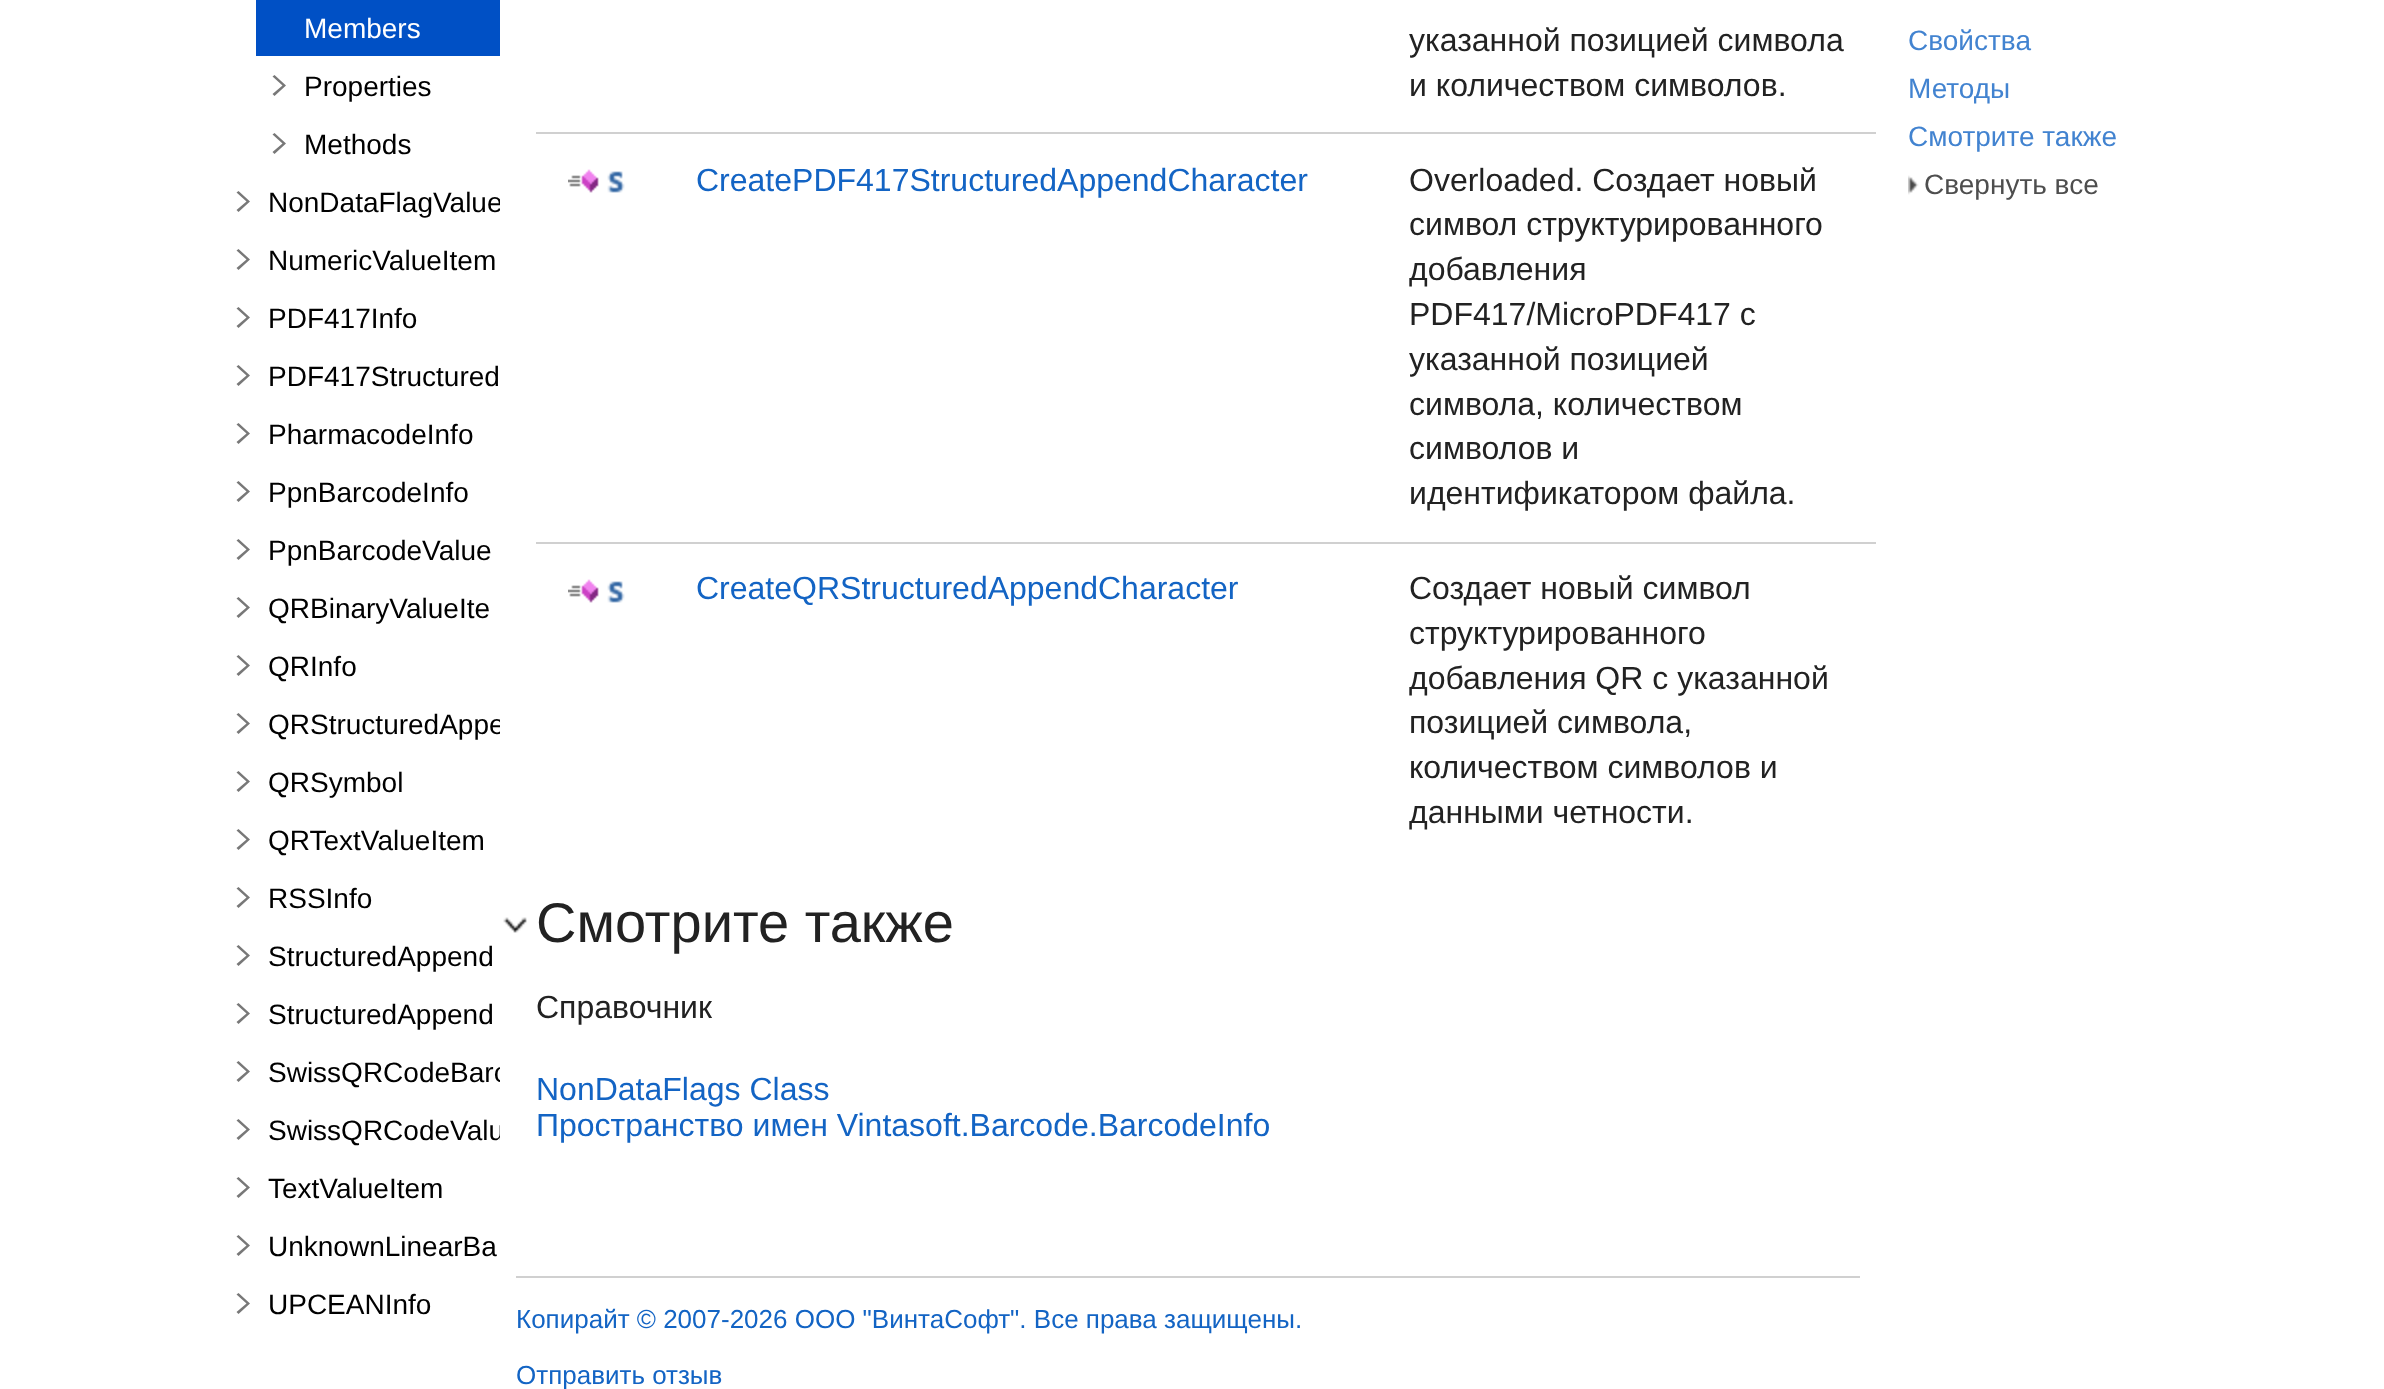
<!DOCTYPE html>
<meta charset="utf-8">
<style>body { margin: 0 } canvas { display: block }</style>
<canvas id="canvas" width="2384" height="1389"></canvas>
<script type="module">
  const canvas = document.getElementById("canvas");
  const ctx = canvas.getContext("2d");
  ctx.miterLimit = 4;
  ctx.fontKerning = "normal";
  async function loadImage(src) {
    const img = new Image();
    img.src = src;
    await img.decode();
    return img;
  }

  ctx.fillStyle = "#ffffff";
  ctx.fillRect(0, 0, 2384, 1389);
  ctx.fillStyle = "#0050c5";
  ctx.fillRect(256, 0, 244, 56);
  ctx.font = "28px Liberation Sans";
  ctx.fillStyle = "#ffffff";
  ctx.fillText("Members", 304, 38);
  ctx.fillStyle = "#787878";
  ctx.beginPath();
  ctx.moveTo(274.5, 75);
  ctx.lineTo(272.5, 76.5);
  ctx.lineTo(282.5, 85.5);
  ctx.lineTo(272.5, 94);
  ctx.lineTo(274.5, 96);
  ctx.lineTo(286, 85.5);
  ctx.closePath();
  ctx.fill();
  ctx.fillStyle = "#000000";
  ctx.fillText("Properties", 304, 96);
  ctx.fillStyle = "#787878";
  ctx.beginPath();
  ctx.moveTo(274.5, 133);
  ctx.lineTo(272.5, 134.5);
  ctx.lineTo(282.5, 143.5);
  ctx.lineTo(272.5, 152);
  ctx.lineTo(274.5, 154);
  ctx.lineTo(286, 143.5);
  ctx.closePath();
  ctx.fill();
  ctx.fillStyle = "#000000";
  ctx.fillText("Methods", 304, 154);
  ctx.fillStyle = "#787878";
  ctx.beginPath();
  ctx.moveTo(238.5, 191);
  ctx.lineTo(236.5, 192.5);
  ctx.lineTo(246.5, 201.5);
  ctx.lineTo(236.5, 210);
  ctx.lineTo(238.5, 212);
  ctx.lineTo(250, 201.5);
  ctx.closePath();
  ctx.fill();
  ctx.save();
  ctx.beginPath();
  ctx.rect(16, 0, 484, 1334);
  ctx.clip();
  ctx.fillStyle = "#000000";
  ctx.fillText("NonDataFlagValue", 268, 212);
  ctx.restore();
  ctx.beginPath();
  ctx.moveTo(238.5, 249);
  ctx.lineTo(236.5, 250.5);
  ctx.lineTo(246.5, 259.5);
  ctx.lineTo(236.5, 268);
  ctx.lineTo(238.5, 270);
  ctx.lineTo(250, 259.5);
  ctx.closePath();
  ctx.fill();
  ctx.fillStyle = "#000000";
  ctx.fillText("NumericValueItem", 268, 270);
  ctx.fillStyle = "#787878";
  ctx.beginPath();
  ctx.moveTo(238.5, 307);
  ctx.lineTo(236.5, 308.5);
  ctx.lineTo(246.5, 317.5);
  ctx.lineTo(236.5, 326);
  ctx.lineTo(238.5, 328);
  ctx.lineTo(250, 317.5);
  ctx.closePath();
  ctx.fill();
  ctx.fillStyle = "#000000";
  ctx.fillText("PDF417Info", 268, 328);
  ctx.fillStyle = "#787878";
  ctx.beginPath();
  ctx.moveTo(238.5, 365);
  ctx.lineTo(236.5, 366.5);
  ctx.lineTo(246.5, 375.5);
  ctx.lineTo(236.5, 384);
  ctx.lineTo(238.5, 386);
  ctx.lineTo(250, 375.5);
  ctx.closePath();
  ctx.fill();
  ctx.fillStyle = "#000000";
  ctx.fillText("PDF417Structured", 268, 386);
  ctx.fillStyle = "#787878";
  ctx.beginPath();
  ctx.moveTo(238.5, 423);
  ctx.lineTo(236.5, 424.5);
  ctx.lineTo(246.5, 433.5);
  ctx.lineTo(236.5, 442);
  ctx.lineTo(238.5, 444);
  ctx.lineTo(250, 433.5);
  ctx.closePath();
  ctx.fill();
  ctx.fillStyle = "#000000";
  ctx.fillText("PharmacodeInfo", 268, 444);
  ctx.fillStyle = "#787878";
  ctx.beginPath();
  ctx.moveTo(238.5, 481);
  ctx.lineTo(236.5, 482.5);
  ctx.lineTo(246.5, 491.5);
  ctx.lineTo(236.5, 500);
  ctx.lineTo(238.5, 502);
  ctx.lineTo(250, 491.5);
  ctx.closePath();
  ctx.fill();
  ctx.fillStyle = "#000000";
  ctx.fillText("PpnBarcodeInfo", 268, 502);
  ctx.fillStyle = "#787878";
  ctx.beginPath();
  ctx.moveTo(238.5, 539);
  ctx.lineTo(236.5, 540.5);
  ctx.lineTo(246.5, 549.5);
  ctx.lineTo(236.5, 558);
  ctx.lineTo(238.5, 560);
  ctx.lineTo(250, 549.5);
  ctx.closePath();
  ctx.fill();
  ctx.fillStyle = "#000000";
  ctx.fillText("PpnBarcodeValue", 268, 560);
  ctx.fillStyle = "#787878";
  ctx.beginPath();
  ctx.moveTo(238.5, 597);
  ctx.lineTo(236.5, 598.5);
  ctx.lineTo(246.5, 607.5);
  ctx.lineTo(236.5, 616);
  ctx.lineTo(238.5, 618);
  ctx.lineTo(250, 607.5);
  ctx.closePath();
  ctx.fill();
  ctx.fillStyle = "#000000";
  ctx.fillText("QRBinaryValueIte", 268, 618);
  ctx.fillStyle = "#787878";
  ctx.beginPath();
  ctx.moveTo(238.5, 655);
  ctx.lineTo(236.5, 656.5);
  ctx.lineTo(246.5, 665.5);
  ctx.lineTo(236.5, 674);
  ctx.lineTo(238.5, 676);
  ctx.lineTo(250, 665.5);
  ctx.closePath();
  ctx.fill();
  ctx.fillStyle = "#000000";
  ctx.fillText("QRInfo", 268, 676);
  ctx.fillStyle = "#787878";
  ctx.beginPath();
  ctx.moveTo(238.5, 713);
  ctx.lineTo(236.5, 714.5);
  ctx.lineTo(246.5, 723.5);
  ctx.lineTo(236.5, 732);
  ctx.lineTo(238.5, 734);
  ctx.lineTo(250, 723.5);
  ctx.closePath();
  ctx.fill();
  ctx.save();
  ctx.beginPath();
  ctx.rect(16, 0, 484, 1334);
  ctx.clip();
  ctx.fillStyle = "#000000";
  ctx.fillText("QRStructuredAppe", 268, 734);
  ctx.restore();
  ctx.beginPath();
  ctx.moveTo(238.5, 771);
  ctx.lineTo(236.5, 772.5);
  ctx.lineTo(246.5, 781.5);
  ctx.lineTo(236.5, 790);
  ctx.lineTo(238.5, 792);
  ctx.lineTo(250, 781.5);
  ctx.closePath();
  ctx.fill();
  ctx.fillStyle = "#000000";
  ctx.fillText("QRSymbol", 268, 792);
  ctx.fillStyle = "#787878";
  ctx.beginPath();
  ctx.moveTo(238.5, 829);
  ctx.lineTo(236.5, 830.5);
  ctx.lineTo(246.5, 839.5);
  ctx.lineTo(236.5, 848);
  ctx.lineTo(238.5, 850);
  ctx.lineTo(250, 839.5);
  ctx.closePath();
  ctx.fill();
  ctx.fillStyle = "#000000";
  ctx.fillText("QRTextValueItem", 268, 850);
  ctx.fillStyle = "#787878";
  ctx.beginPath();
  ctx.moveTo(238.5, 887);
  ctx.lineTo(236.5, 888.5);
  ctx.lineTo(246.5, 897.5);
  ctx.lineTo(236.5, 906);
  ctx.lineTo(238.5, 908);
  ctx.lineTo(250, 897.5);
  ctx.closePath();
  ctx.fill();
  ctx.fillStyle = "#000000";
  ctx.fillText("RSSInfo", 268, 908);
  ctx.fillStyle = "#787878";
  ctx.beginPath();
  ctx.moveTo(238.5, 945);
  ctx.lineTo(236.5, 946.5);
  ctx.lineTo(246.5, 955.5);
  ctx.lineTo(236.5, 964);
  ctx.lineTo(238.5, 966);
  ctx.lineTo(250, 955.5);
  ctx.closePath();
  ctx.fill();
  ctx.fillStyle = "#000000";
  ctx.fillText("StructuredAppend", 268, 966);
  ctx.fillStyle = "#787878";
  ctx.beginPath();
  ctx.moveTo(238.5, 1003);
  ctx.lineTo(236.5, 1004.5);
  ctx.lineTo(246.5, 1013.5);
  ctx.lineTo(236.5, 1022);
  ctx.lineTo(238.5, 1024);
  ctx.lineTo(250, 1013.5);
  ctx.closePath();
  ctx.fill();
  ctx.fillStyle = "#000000";
  ctx.fillText("StructuredAppend", 268, 1024);
  ctx.fillStyle = "#787878";
  ctx.beginPath();
  ctx.moveTo(238.5, 1061);
  ctx.lineTo(236.5, 1062.5);
  ctx.lineTo(246.5, 1071.5);
  ctx.lineTo(236.5, 1080);
  ctx.lineTo(238.5, 1082);
  ctx.lineTo(250, 1071.5);
  ctx.closePath();
  ctx.fill();
  ctx.save();
  ctx.beginPath();
  ctx.rect(16, 0, 484, 1334);
  ctx.clip();
  ctx.fillStyle = "#000000";
  ctx.fillText("SwissQRCodeBarc", 268, 1082);
  ctx.restore();
  ctx.beginPath();
  ctx.moveTo(238.5, 1119);
  ctx.lineTo(236.5, 1120.5);
  ctx.lineTo(246.5, 1129.5);
  ctx.lineTo(236.5, 1138);
  ctx.lineTo(238.5, 1140);
  ctx.lineTo(250, 1129.5);
  ctx.closePath();
  ctx.fill();
  ctx.save();
  ctx.beginPath();
  ctx.rect(16, 0, 484, 1334);
  ctx.clip();
  ctx.fillStyle = "#000000";
  ctx.fillText("SwissQRCodeValu", 268, 1140);
  ctx.restore();
  ctx.beginPath();
  ctx.moveTo(238.5, 1177);
  ctx.lineTo(236.5, 1178.5);
  ctx.lineTo(246.5, 1187.5);
  ctx.lineTo(236.5, 1196);
  ctx.lineTo(238.5, 1198);
  ctx.lineTo(250, 1187.5);
  ctx.closePath();
  ctx.fill();
  ctx.fillStyle = "#000000";
  ctx.fillText("TextValueItem", 268, 1198);
  ctx.fillStyle = "#787878";
  ctx.beginPath();
  ctx.moveTo(238.5, 1235);
  ctx.lineTo(236.5, 1236.5);
  ctx.lineTo(246.5, 1245.5);
  ctx.lineTo(236.5, 1254);
  ctx.lineTo(238.5, 1256);
  ctx.lineTo(250, 1245.5);
  ctx.closePath();
  ctx.fill();
  ctx.fillStyle = "#000000";
  ctx.fillText("UnknownLinearBa", 268, 1256);
  ctx.fillStyle = "#787878";
  ctx.beginPath();
  ctx.moveTo(238.5, 1293);
  ctx.lineTo(236.5, 1294.5);
  ctx.lineTo(246.5, 1303.5);
  ctx.lineTo(236.5, 1312);
  ctx.lineTo(238.5, 1314);
  ctx.lineTo(250, 1303.5);
  ctx.closePath();
  ctx.fill();
  ctx.fillStyle = "#000000";
  ctx.fillText("UPCEANInfo", 268, 1314);
  ctx.font = "32px Liberation Sans";
  ctx.fillStyle = "#222222";
  ctx.fillText("указанной позицией символа", 1409, 51);
  ctx.fillText("и количеством символов.", 1409, 96);
  ctx.drawImage(await loadImage("img1.png"), 568, 169, 31, 24);
  ctx.drawImage(await loadImage("img2.png"), 607, 171, 18, 22);
  ctx.fillStyle = "#1364c4";
  ctx.fillText("CreatePDF417StructuredAppendCharacter", 696, 191);
  ctx.fillStyle = "#d0d0d0";
  ctx.fillRect(536, 132, 1340, 2);
  ctx.fillStyle = "#222222";
  ctx.fillText("Overloaded. Создает новый", 1409, 191);
  ctx.fillText("символ структурированного", 1409, 235);
  ctx.fillText("добавления", 1409, 280);
  ctx.fillText("PDF417/MicroPDF417 с", 1409, 325);
  ctx.fillText("указанной позицией", 1409, 370);
  ctx.fillText("символа, количеством", 1409, 415);
  ctx.fillText("символов и", 1409, 459);
  ctx.fillText("идентификатором файла.", 1409, 504);
  ctx.drawImage(await loadImage("img1.png"), 568, 579, 31, 24);
  ctx.drawImage(await loadImage("img2.png"), 607, 581, 18, 22);
  ctx.fillStyle = "#1364c4";
  ctx.fillText("CreateQRStructuredAppendCharacter", 696, 599);
  ctx.fillStyle = "#d0d0d0";
  ctx.fillRect(536, 542, 1340, 2);
  ctx.fillStyle = "#222222";
  ctx.fillText("Создает новый символ", 1409, 599);
  ctx.fillText("структурированного", 1409, 644);
  ctx.fillText("добавления QR с указанной", 1409, 689);
  ctx.fillText("позицией символа,", 1409, 733);
  ctx.fillText("количеством символов и", 1409, 778);
  ctx.fillText("данными четности.", 1409, 823);
  ctx.drawImage(await loadImage("img3.png"), 503, 917, 24, 16);
  ctx.font = "56px Liberation Sans";
  ctx.fillText("Смотрите также", 536, 942);
  ctx.font = "32px Liberation Sans";
  ctx.fillText("Справочник", 536, 1018);
  ctx.fillStyle = "#1364c4";
  ctx.fillText("NonDataFlags Class", 536, 1100);
  ctx.fillText("Пространство имен Vintasoft.Barcode.BarcodeInfo", 536, 1136);
  ctx.fillStyle = "#d0d0d0";
  ctx.fillRect(516, 1276, 1344, 2);
  ctx.font = "26px Liberation Sans";
  ctx.fillStyle = "#1364c4";
  ctx.fillText("Копирайт © 2007-2026 ООО \"ВинтаСофт\". Все права защищены.", 516, 1328);
  ctx.fillText("Отправить отзыв", 516, 1384);
  ctx.font = "28px Liberation Sans";
  ctx.fillStyle = "#4283d0";
  ctx.fillText("Свойства", 1908, 50);
  ctx.fillText("Методы", 1908, 98);
  ctx.fillText("Смотрите также", 1908, 146);
  ctx.drawImage(await loadImage("img4.png"), 1908, 175, 11, 20);
  ctx.fillStyle = "#4e4e4e";
  ctx.fillText("Свернуть все", 1924, 194);
</script>
